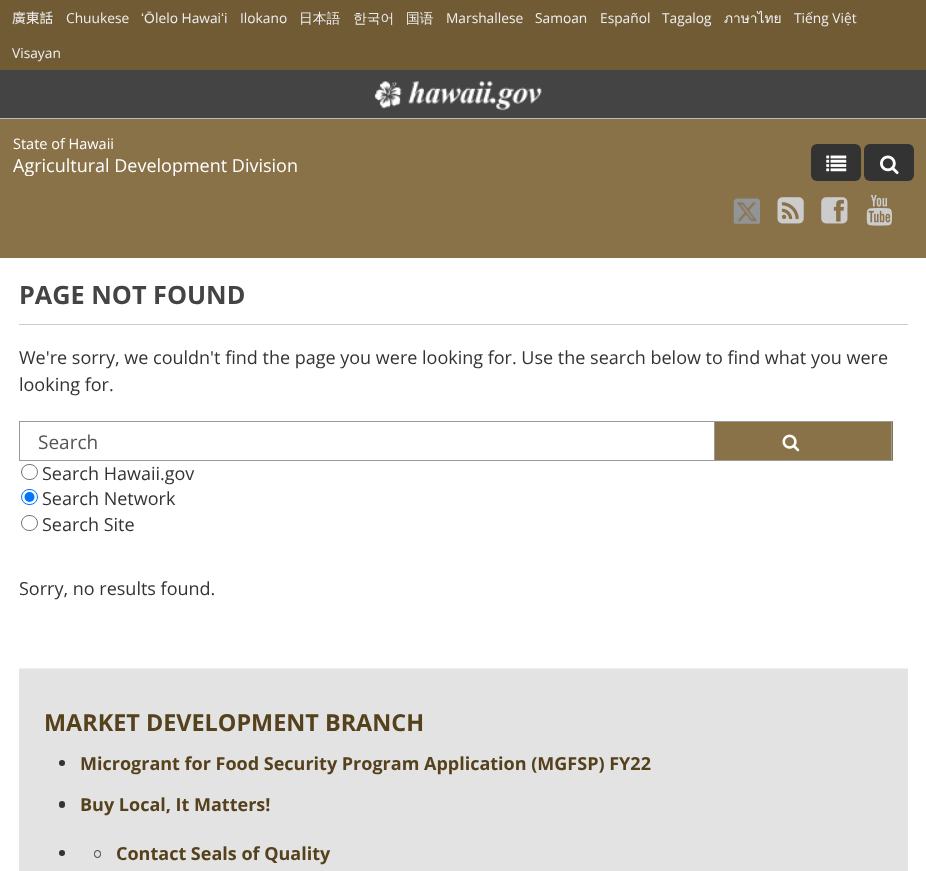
<!DOCTYPE html>
<meta charset="utf-8">
<style>body { margin: 0 } canvas { display: block }</style>
<canvas id="canvas" width="926" height="871"></canvas>
<script type="module">
  const canvas = document.getElementById("canvas");
  const ctx = canvas.getContext("2d");
  ctx.miterLimit = 4;
  ctx.fontKerning = "normal";
  async function loadImage(src) {
    const img = new Image();
    img.src = src;
    await img.decode();
    return img;
  }

  ctx.fillStyle = "#ffffff";
  ctx.fillRect(0, 0, 926, 871);
  ctx.fillStyle = "#705b35";
  ctx.fillRect(0, 0, 926, 70);
  ctx.font = "13.75px Chiron Hei HK";
  ctx.fillStyle = "#eeeeee";
  ctx.fillText("廣東話", 12, 23);
  ctx.font = "13.75px Open Sans";
  ctx.fillText("Chuukese", 66, 23);
  ctx.font = "13.75px Liberation Sans";
  ctx.fillText("ʻŌ", 141, 23);
  ctx.font = "13.75px Open Sans";
  ctx.fillText("lelo Hawai", 155, 23);
  ctx.font = "13.75px Liberation Sans";
  ctx.fillText("ʻ", 221, 23);
  ctx.font = "13.75px Open Sans";
  ctx.fillText("i", 224, 23);
  ctx.fillText("Ilokano", 240, 23);
  ctx.font = "500 13.75px WenQuanYi Zen Hei";
  ctx.fillText("日本語", 299, 23);
  ctx.fillText("한국어", 353, 23);
  ctx.fillText("国语", 406, 23);
  ctx.font = "13.75px Open Sans";
  ctx.fillText("Marshallese", 446, 23);
  ctx.fillText("Samoan", 535, 23);
  ctx.fillText("Español", 600, 23);
  ctx.fillText("Tagalog", 662, 23);
  ctx.font = "13.75px Loma";
  ctx.fillText("ภาษาไทย", 724, 23);
  ctx.font = "13.75px Open Sans";
  ctx.fillText("Tiếng Việt", 794, 23);
  ctx.fillText("Visayan", 12, 58);
  ctx.fillStyle = "#444444";
  ctx.fillRect(0, 70, 926, 48);
  ctx.fillStyle = "#bbbbbb";
  ctx.fillRect(0, 118, 926, 1);
  ctx.drawImage(await loadImage("img1.png"), 374, 81, 168, 30);
  ctx.fillStyle = "#897148";
  ctx.fillRect(0, 119, 926, 139);
  ctx.font = "14.5px Open Sans";
  ctx.fillStyle = "#ffffff";
  ctx.fillText("State of Hawaii", 13, 149);
  ctx.save();
  ctx.beginPath();
  ctx.rect(13, 131, 631, 45);
  ctx.clip();
  ctx.font = "18px Open Sans";
  ctx.fillText("Agricultural Development Division", 13, 172);
  ctx.restore();
  ctx.fillStyle = "#333333";
  ctx.beginPath();
  ctx.roundRect(811, 144, 50, 37, 6);
  ctx.fill();
  ctx.drawImage(await loadImage("img2.png"), 826, 155, 21, 17);
  ctx.beginPath();
  ctx.roundRect(864, 144, 50, 37, 6);
  ctx.fill();
  ctx.drawImage(await loadImage("img3.png"), 880, 155, 19, 20);
  ctx.drawImage(await loadImage("img4.png"), 733, 197, 27, 27);
  ctx.drawImage(await loadImage("img5.png"), 777, 197, 27, 27);
  ctx.drawImage(await loadImage("img6.png"), 821, 197, 27, 27);
  ctx.drawImage(await loadImage("img7.png"), 866, 195, 26, 31);
  ctx.fillStyle = "#cccccc";
  ctx.fillRect(19, 324, 889, 1);
  ctx.font = "bold 25.25px Open Sans";
  ctx.fillStyle = "#444444";
  ctx.fillText("PAGE NOT FOUND", 19, 304);
  ctx.font = "18px Open Sans";
  ctx.fillStyle = "#333333";
  ctx.fillText("We're sorry, we couldn't find the page you were looking for. Use the search below to find what you were", 19, 364);
  ctx.fillText("looking for.", 19, 391);
  ctx.strokeStyle = "#999999";
  ctx.strokeRect(19.5, 421.5, 695, 39);
  ctx.font = "19px Open Sans";
  ctx.fillStyle = "#555555";
  ctx.fillText("Search", 38, 449);
  ctx.fillStyle = "#897148";
  ctx.fillRect(715, 422, 178, 38);
  ctx.fillStyle = "#999999";
  ctx.fillRect(715, 421, 178, 1);
  ctx.fillRect(891, 421, 1, 40);
  ctx.fillRect(715, 460, 178, 1);
  ctx.drawImage(await loadImage("img8.png"), 782, 434, 18, 18);
  ctx.beginPath();
  ctx.roundRect(21.5, 464.5, 16, 15, 7.5);
  ctx.strokeStyle = "#767676";
  ctx.stroke();
  ctx.font = "18px Open Sans";
  ctx.fillStyle = "#333333";
  ctx.fillText("Search Hawaii.gov", 42, 480);
  ctx.beginPath();
  ctx.roundRect(21.5, 489.5, 16, 15, 7.5);
  ctx.strokeStyle = "#0075ff";
  ctx.stroke();
  ctx.fillStyle = "#0075ff";
  ctx.beginPath();
  ctx.arc(29.5, 497, 5, 0, Math.PI * 2);
  ctx.fill();
  ctx.fillStyle = "#333333";
  ctx.fillText("Search Network", 42, 505);
  ctx.beginPath();
  ctx.roundRect(21.5, 515.5, 16, 15, 7.5);
  ctx.strokeStyle = "#767676";
  ctx.stroke();
  ctx.fillText("Search Site", 42, 531);
  ctx.fillText("Sorry, no results found.", 19, 595);
  ctx.fillStyle = "#e3e3e3";
  ctx.fillRect(19, 669, 889, 202);
  ctx.fillStyle = "#f0f0f0";
  ctx.fillRect(19, 668, 889, 1);
  ctx.font = "bold 23.4px Open Sans";
  ctx.fillStyle = "#55411c";
  ctx.fillText("MARKET DEVELOPMENT BRANCH", 44, 731);
  ctx.fillStyle = "#333333";
  ctx.beginPath();
  ctx.arc(62, 763, 3, 0, Math.PI * 2);
  ctx.fill();
  ctx.font = "bold 18px Open Sans";
  ctx.fillStyle = "#55411c";
  ctx.fillText("Microgrant for Food Security Program Application (MGFSP) FY22", 80, 770);
  ctx.fillStyle = "#333333";
  ctx.beginPath();
  ctx.roundRect(59, 801, 6, 7, 3);
  ctx.fill();
  ctx.fillStyle = "#55411c";
  ctx.fillText("Buy Local, It Matters!", 80, 811);
  ctx.fillStyle = "#333333";
  ctx.beginPath();
  ctx.arc(62, 853, 3, 0, Math.PI * 2);
  ctx.fill();
  ctx.beginPath();
  ctx.roundRect(94.5, 850.5, 6, 7, 3);
  ctx.strokeStyle = "#333333";
  ctx.stroke();
  ctx.fillStyle = "#55411c";
  ctx.fillText("Contact Seals of Quality", 116, 860);
</script>
